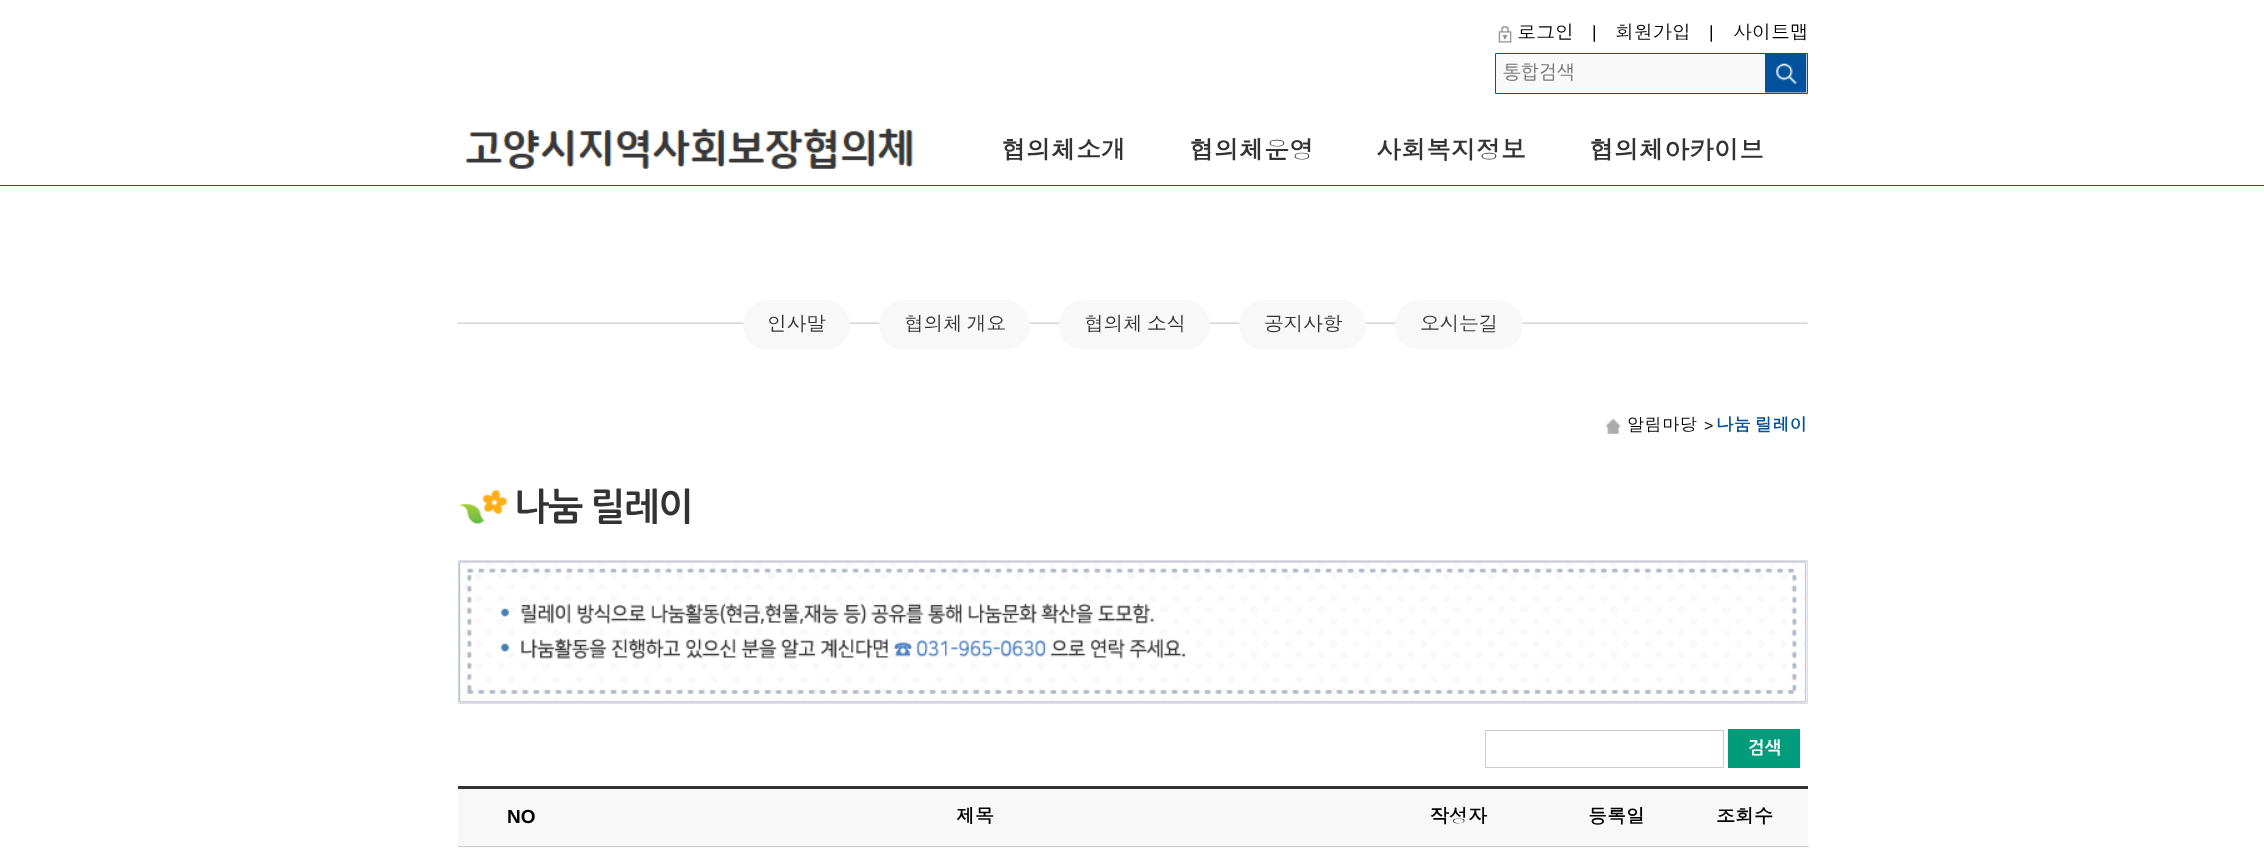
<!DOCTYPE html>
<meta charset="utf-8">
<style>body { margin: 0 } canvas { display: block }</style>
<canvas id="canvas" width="2264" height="858"></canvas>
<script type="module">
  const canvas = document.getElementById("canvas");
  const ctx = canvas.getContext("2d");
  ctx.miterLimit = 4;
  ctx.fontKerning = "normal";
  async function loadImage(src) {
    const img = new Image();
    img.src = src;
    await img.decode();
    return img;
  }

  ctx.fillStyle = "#ffffff";
  ctx.fillRect(0, 0, 2264, 858);
  ctx.drawImage(await loadImage("img1.png"), 1498, 26, 14, 17);
  ctx.font = "19px Dotum";
  ctx.fillStyle = "#000000";
  ctx.fillText("로그인", 1517, 39);
  ctx.font = "17.5px Liberation Sans";
  ctx.fillText("|", 1592, 38);
  ctx.font = "19px Dotum";
  ctx.fillText("회원가입", 1615, 39);
  ctx.font = "17.5px Liberation Sans";
  ctx.fillText("|", 1709, 38);
  ctx.font = "19px Dotum";
  ctx.fillText("사이트맵", 1733, 39);
  ctx.fillStyle = "#f9f9f9";
  ctx.beginPath();
  ctx.rect(1495.5, 53.5, 312, 40);
  ctx.fill();
  ctx.strokeStyle = "#01529c";
  ctx.stroke();
  ctx.font = "19px NanumGothic";
  ctx.fillStyle = "#757575";
  ctx.fillText("통합검색", 1503, 79);
  ctx.drawImage(await loadImage("img2.png"), 1765, 54, 42, 39);
  ctx.drawImage(await loadImage("img3.png"), 465, 128, 448, 41);
  ctx.fillStyle = "#01519c";
  ctx.fillRect(0, 185, 2264, 1);
  ctx.font = "bold 25px Dotum";
  ctx.fillStyle = "#333333";
  ctx.fillText("협의체소개", 1001, 159);
  ctx.fillText("협의체운영", 1189, 159);
  ctx.fillText("사회복지정보", 1376, 159);
  ctx.fillText("협의체아카이브", 1589, 159);
  ctx.drawImage(await loadImage("img4.png"), 457, 322, 1351, 2);
  ctx.fillStyle = "#f8f8f8";
  ctx.beginPath();
  ctx.roundRect(743, 300, 107, 50, 25);
  ctx.fill();
  ctx.letterSpacing = "-0.5px";
  ctx.font = "20px Dotum";
  ctx.fillStyle = "#333333";
  ctx.fillText("인사말", 767, 331);
  ctx.fillStyle = "#f8f8f8";
  ctx.beginPath();
  ctx.roundRect(879, 300, 151, 50, 25);
  ctx.fill();
  ctx.wordSpacing = "-2px";
  ctx.fillStyle = "#333333";
  ctx.fillText("협의체 개요", 904, 331);
  ctx.fillStyle = "#f8f8f8";
  ctx.beginPath();
  ctx.roundRect(1059, 300, 151, 50, 25);
  ctx.fill();
  ctx.fillStyle = "#333333";
  ctx.fillText("협의체 소식", 1084, 331);
  ctx.fillStyle = "#f8f8f8";
  ctx.beginPath();
  ctx.roundRect(1239, 300, 127, 50, 25);
  ctx.fill();
  ctx.wordSpacing = "0px";
  ctx.fillStyle = "#333333";
  ctx.fillText("공지사항", 1264, 331);
  ctx.fillStyle = "#f8f8f8";
  ctx.beginPath();
  ctx.roundRect(1395, 300, 128, 50, 25);
  ctx.fill();
  ctx.fillStyle = "#333333";
  ctx.fillText("오시는길", 1420, 331);
  ctx.drawImage(await loadImage("img5.png"), 1605, 418, 16, 16);
  ctx.letterSpacing = "0px";
  ctx.font = "17.5px Dotum";
  ctx.fillStyle = "#000000";
  ctx.fillText("알림마당", 1627, 431);
  ctx.font = "16px Liberation Sans";
  ctx.fillText(">", 1704, 431);
  ctx.wordSpacing = "-2px";
  ctx.font = "bold 17.5px Dotum";
  ctx.fillStyle = "#01519c";
  ctx.fillText("나눔 릴레이", 1716, 431);
  ctx.drawImage(await loadImage("img6.png"), 457, 490, 51, 35);
  ctx.letterSpacing = "-1.25px";
  ctx.wordSpacing = "-1px";
  ctx.font = "bold 37.5px NanumGothic";
  ctx.fillStyle = "#333333";
  ctx.fillText("나눔 릴레이", 514, 520);
  ctx.strokeStyle = "#dddfe2";
  ctx.strokeRect(458.5, 560.5, 1349, 143);
  ctx.drawImage(await loadImage("img7.png"), 458, 561, 1349, 142);
  ctx.strokeStyle = "#cccccc";
  ctx.strokeRect(1485.5, 730.5, 238, 37);
  ctx.fillStyle = "#009c7c";
  ctx.fillRect(1728, 729, 72, 39);
  ctx.letterSpacing = "0px";
  ctx.wordSpacing = "0px";
  ctx.font = "bold 17.5px NanumGothic";
  ctx.fillStyle = "#ffffff";
  ctx.fillText("검색", 1748, 754);
  ctx.fillStyle = "#333333";
  ctx.fillRect(458, 786, 1350, 3);
  ctx.fillStyle = "#f8f8f8";
  ctx.fillRect(458, 789, 1350, 59);
  ctx.font = "bold 19px Liberation Sans";
  ctx.fillStyle = "#000000";
  ctx.fillText("NO", 507, 823);
  ctx.font = "bold 19px Dotum";
  ctx.fillText("제목", 956, 823);
  ctx.fillText("작성자", 1430, 823);
  ctx.fillText("등록일", 1588, 823);
  ctx.fillStyle = "#cccccc";
  ctx.fillRect(458, 846, 1351, 1);
  ctx.fillStyle = "#000000";
  ctx.fillText("조회수", 1716, 823);
</script>
